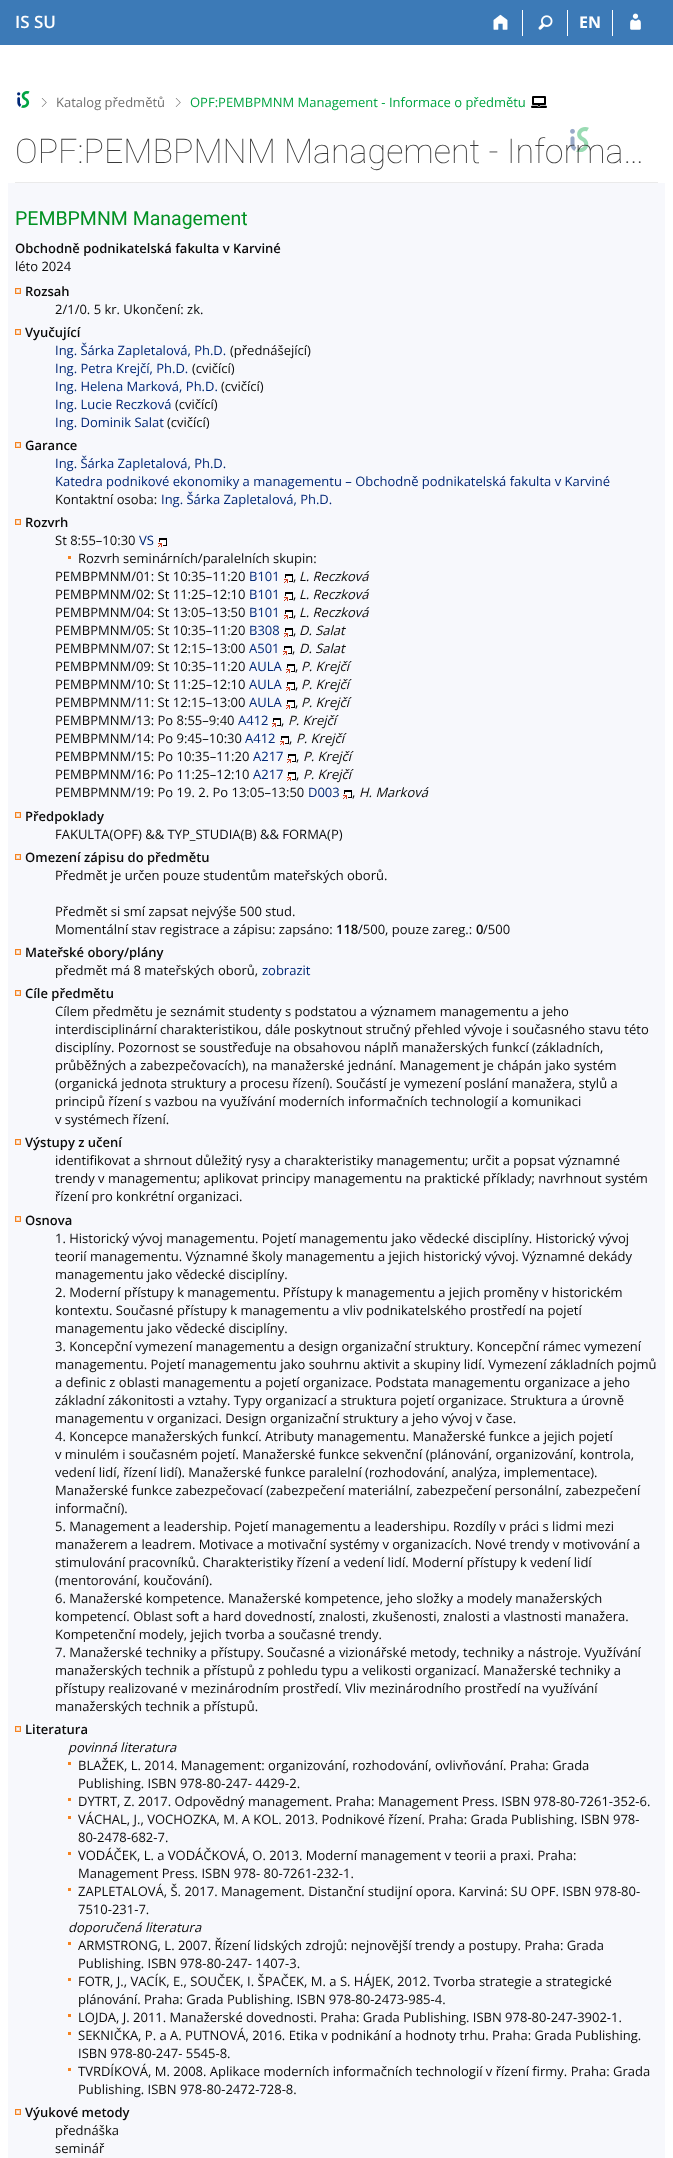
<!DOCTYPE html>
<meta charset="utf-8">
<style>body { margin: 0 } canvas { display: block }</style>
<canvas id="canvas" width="673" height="2158"></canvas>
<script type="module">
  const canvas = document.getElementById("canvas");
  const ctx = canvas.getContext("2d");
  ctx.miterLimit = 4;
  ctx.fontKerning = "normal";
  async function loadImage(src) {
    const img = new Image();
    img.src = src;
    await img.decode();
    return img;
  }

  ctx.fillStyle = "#ffffff";
  ctx.fillRect(0, 0, 673, 2158);
  ctx.fillStyle = "#3c7ab7";
  ctx.fillRect(0, 0, 673, 45);
  ctx.font = "600 17px Open Sans";
  ctx.fillStyle = "#ffffff";
  ctx.fillText("IS SU", 15, 28);
  ctx.fillRect(522, 10, 1, 26);
  ctx.drawImage(await loadImage("img1.png"), 493, 14, 15, 16);
  ctx.fillRect(567, 10, 1, 26);
  ctx.drawImage(await loadImage("img2.png"), 538, 15, 15, 15);
  ctx.fillRect(612, 10, 1, 26);
  ctx.font = "bold 16px Open Sans";
  ctx.fillText("EN", 579, 28);
  ctx.drawImage(await loadImage("img3.png"), 630, 13, 11, 17);
  ctx.drawImage(await loadImage("img4.png"), 17, 91, 13, 17);
  ctx.drawImage(await loadImage("img5.png"), 41, 98, 6, 9);
  ctx.font = "13px Open Sans";
  ctx.fillStyle = "#707070";
  ctx.fillText("Katalog předmětů", 56, 107);
  ctx.drawImage(await loadImage("img5.png"), 175, 98, 6, 9);
  ctx.fillStyle = "#00a442";
  ctx.fillText("OPF:PEMBPMNM Management - Informace o předmětu", 190, 107);
  ctx.drawImage(await loadImage("img6.png"), 531, 96, 16, 12);
  ctx.drawImage(await loadImage("img7.png"), 570, 127, 19, 25);
  ctx.font = "100 34px Roboto";
  ctx.fillStyle = "#3a3a3a";
  ctx.fillText("OPF:PEMBPMNM Management - Informa…", 15, 163);
  ctx.fillStyle = "#eaeaea";
  ctx.fillRect(15, 182, 643, 1);
  ctx.fillStyle = "#f7f8fc";
  ctx.fillRect(8, 183, 657, 1975);
  ctx.font = "19.5px Roboto";
  ctx.fillStyle = "#029123";
  ctx.fillText("PEMBPMNM Management", 15, 225);
  ctx.font = "600 13px Open Sans";
  ctx.fillStyle = "#0a0a0a";
  ctx.fillText("Obchodně podnikatelská fakulta v Karviné", 15, 253);
  ctx.font = "13px Open Sans";
  ctx.fillText("léto 2024", 15, 271);
  ctx.drawImage(await loadImage("img8.png"), 15, 288, 6, 6);
  ctx.font = "600 13px Open Sans";
  ctx.fillText("Rozsah", 25, 296);
  ctx.font = "13px Open Sans";
  ctx.fillText("2/1/0. 5 kr. Ukončení: zk.", 55, 314);
  ctx.drawImage(await loadImage("img8.png"), 15, 329, 6, 6);
  ctx.font = "600 13px Open Sans";
  ctx.fillText("Vyučující", 25, 337);
  ctx.font = "13px Open Sans";
  ctx.fillStyle = "#002776";
  ctx.fillText("Ing. Šárka Zapletalová, Ph.D.", 55, 355);
  ctx.fillStyle = "#0a0a0a";
  ctx.fillText("(přednášející)", 230, 355);
  ctx.fillStyle = "#002776";
  ctx.fillText("Ing. Petra Krejčí, Ph.D.", 55, 373);
  ctx.fillStyle = "#0a0a0a";
  ctx.fillText("(cvičící)", 192, 373);
  ctx.fillStyle = "#002776";
  ctx.fillText("Ing. Helena Marková, Ph.D.", 55, 391);
  ctx.fillStyle = "#0a0a0a";
  ctx.fillText("(cvičící)", 221, 391);
  ctx.fillStyle = "#002776";
  ctx.fillText("Ing. Lucie Reczková", 55, 409);
  ctx.fillStyle = "#0a0a0a";
  ctx.fillText("(cvičící)", 175, 409);
  ctx.fillStyle = "#002776";
  ctx.fillText("Ing. Dominik Salat", 55, 427);
  ctx.fillStyle = "#0a0a0a";
  ctx.fillText("(cvičící)", 167, 427);
  ctx.drawImage(await loadImage("img8.png"), 15, 442, 6, 6);
  ctx.font = "600 13px Open Sans";
  ctx.fillText("Garance", 25, 450);
  ctx.font = "13px Open Sans";
  ctx.fillStyle = "#002776";
  ctx.fillText("Ing. Šárka Zapletalová, Ph.D.", 55, 468);
  ctx.fillText("Katedra podnikové ekonomiky a managementu – Obchodně podnikatelská fakulta v Karviné", 55, 486);
  ctx.fillStyle = "#0a0a0a";
  ctx.fillText("Kontaktní osoba:", 55, 504);
  ctx.fillStyle = "#002776";
  ctx.fillText("Ing. Šárka Zapletalová, Ph.D.", 161, 504);
  ctx.drawImage(await loadImage("img8.png"), 15, 519, 6, 6);
  ctx.font = "600 13px Open Sans";
  ctx.fillStyle = "#0a0a0a";
  ctx.fillText("Rozvrh", 25, 527);
  ctx.font = "13px Open Sans";
  ctx.fillText("St 8:55–10:30", 55, 545);
  ctx.fillStyle = "#002776";
  ctx.fillText("VS", 139, 545);
  ctx.drawImage(await loadImage("img9.png"), 158, 538, 9, 9);
  ctx.fillStyle = "#f5821f";
  ctx.fillRect(68, 556, 3, 3);
  ctx.fillStyle = "#0a0a0a";
  ctx.fillText("Rozvrh seminárních/paralelních skupin:", 78, 563);
  ctx.fillText("PEMBPMNM/01: St 10:35–11:20", 55, 581);
  ctx.fillStyle = "#002776";
  ctx.fillText("B101", 249, 581);
  ctx.drawImage(await loadImage("img9.png"), 284, 574, 9, 9);
  ctx.fillStyle = "#0a0a0a";
  ctx.fillText(",", 293, 581);
  ctx.font = "italic 13px Open Sans";
  ctx.fillText("L. Reczková", 299, 581);
  ctx.font = "13px Open Sans";
  ctx.fillText("PEMBPMNM/02: St 11:25–12:10", 55, 599);
  ctx.fillStyle = "#002776";
  ctx.fillText("B101", 249, 599);
  ctx.drawImage(await loadImage("img9.png"), 284, 592, 9, 9);
  ctx.fillStyle = "#0a0a0a";
  ctx.fillText(",", 293, 599);
  ctx.font = "italic 13px Open Sans";
  ctx.fillText("L. Reczková", 299, 599);
  ctx.font = "13px Open Sans";
  ctx.fillText("PEMBPMNM/04: St 13:05–13:50", 55, 617);
  ctx.fillStyle = "#002776";
  ctx.fillText("B101", 249, 617);
  ctx.drawImage(await loadImage("img9.png"), 284, 610, 9, 9);
  ctx.fillStyle = "#0a0a0a";
  ctx.fillText(",", 293, 617);
  ctx.font = "italic 13px Open Sans";
  ctx.fillText("L. Reczková", 299, 617);
  ctx.font = "13px Open Sans";
  ctx.fillText("PEMBPMNM/05: St 10:35–11:20", 55, 635);
  ctx.fillStyle = "#002776";
  ctx.fillText("B308", 249, 635);
  ctx.drawImage(await loadImage("img9.png"), 284, 628, 9, 9);
  ctx.fillStyle = "#0a0a0a";
  ctx.fillText(",", 293, 635);
  ctx.font = "italic 13px Open Sans";
  ctx.fillText("D. Salat", 299, 635);
  ctx.font = "13px Open Sans";
  ctx.fillText("PEMBPMNM/07: St 12:15–13:00", 55, 653);
  ctx.fillStyle = "#002776";
  ctx.fillText("A501", 249, 653);
  ctx.drawImage(await loadImage("img9.png"), 283, 646, 9, 9);
  ctx.fillStyle = "#0a0a0a";
  ctx.fillText(",", 292, 653);
  ctx.font = "italic 13px Open Sans";
  ctx.fillText("D. Salat", 299, 653);
  ctx.font = "13px Open Sans";
  ctx.fillText("PEMBPMNM/09: St 10:35–11:20", 55, 671);
  ctx.fillStyle = "#002776";
  ctx.fillText("AULA", 249, 671);
  ctx.drawImage(await loadImage("img9.png"), 286, 664, 9, 9);
  ctx.fillStyle = "#0a0a0a";
  ctx.fillText(",", 295, 671);
  ctx.font = "italic 13px Open Sans";
  ctx.fillText("P. Krejčí", 301, 671);
  ctx.font = "13px Open Sans";
  ctx.fillText("PEMBPMNM/10: St 11:25–12:10", 55, 689);
  ctx.fillStyle = "#002776";
  ctx.fillText("AULA", 249, 689);
  ctx.drawImage(await loadImage("img9.png"), 286, 682, 9, 9);
  ctx.fillStyle = "#0a0a0a";
  ctx.fillText(",", 295, 689);
  ctx.font = "italic 13px Open Sans";
  ctx.fillText("P. Krejčí", 301, 689);
  ctx.font = "13px Open Sans";
  ctx.fillText("PEMBPMNM/11: St 12:15–13:00", 55, 707);
  ctx.fillStyle = "#002776";
  ctx.fillText("AULA", 249, 707);
  ctx.drawImage(await loadImage("img9.png"), 286, 700, 9, 9);
  ctx.fillStyle = "#0a0a0a";
  ctx.fillText(",", 295, 707);
  ctx.font = "italic 13px Open Sans";
  ctx.fillText("P. Krejčí", 301, 707);
  ctx.font = "13px Open Sans";
  ctx.fillText("PEMBPMNM/13: Po 8:55–9:40", 55, 725);
  ctx.fillStyle = "#002776";
  ctx.fillText("A412", 238, 725);
  ctx.drawImage(await loadImage("img9.png"), 272, 718, 9, 9);
  ctx.fillStyle = "#0a0a0a";
  ctx.fillText(",", 281, 725);
  ctx.font = "italic 13px Open Sans";
  ctx.fillText("P. Krejčí", 288, 725);
  ctx.font = "13px Open Sans";
  ctx.fillText("PEMBPMNM/14: Po 9:45–10:30", 55, 743);
  ctx.fillStyle = "#002776";
  ctx.fillText("A412", 245, 743);
  ctx.drawImage(await loadImage("img9.png"), 280, 736, 9, 9);
  ctx.fillStyle = "#0a0a0a";
  ctx.fillText(",", 289, 743);
  ctx.font = "italic 13px Open Sans";
  ctx.fillText("P. Krejčí", 296, 743);
  ctx.font = "13px Open Sans";
  ctx.fillText("PEMBPMNM/15: Po 10:35–11:20", 55, 761);
  ctx.fillStyle = "#002776";
  ctx.fillText("A217", 253, 761);
  ctx.drawImage(await loadImage("img9.png"), 287, 754, 9, 9);
  ctx.fillStyle = "#0a0a0a";
  ctx.fillText(",", 296, 761);
  ctx.font = "italic 13px Open Sans";
  ctx.fillText("P. Krejčí", 303, 761);
  ctx.font = "13px Open Sans";
  ctx.fillText("PEMBPMNM/16: Po 11:25–12:10", 55, 779);
  ctx.fillStyle = "#002776";
  ctx.fillText("A217", 253, 779);
  ctx.drawImage(await loadImage("img9.png"), 287, 772, 9, 9);
  ctx.fillStyle = "#0a0a0a";
  ctx.fillText(",", 296, 779);
  ctx.font = "italic 13px Open Sans";
  ctx.fillText("P. Krejčí", 303, 779);
  ctx.font = "13px Open Sans";
  ctx.fillText("PEMBPMNM/19: Po 19. 2. Po 13:05–13:50", 55, 797);
  ctx.fillStyle = "#002776";
  ctx.fillText("D003", 308, 797);
  ctx.drawImage(await loadImage("img9.png"), 343, 790, 9, 9);
  ctx.fillStyle = "#0a0a0a";
  ctx.fillText(",", 352, 797);
  ctx.font = "italic 13px Open Sans";
  ctx.fillText("H. Marková", 359, 797);
  ctx.drawImage(await loadImage("img8.png"), 15, 812, 6, 6);
  ctx.font = "600 13px Open Sans";
  ctx.fillText("Předpoklady", 25, 821);
  ctx.font = "13px Open Sans";
  ctx.fillText("FAKULTA(OPF) && TYP_STUDIA(B) && FORMA(P)", 55, 839);
  ctx.drawImage(await loadImage("img8.png"), 15, 854, 6, 6);
  ctx.font = "600 13px Open Sans";
  ctx.fillText("Omezení zápisu do předmětu", 25, 862);
  ctx.font = "13px Open Sans";
  ctx.fillText("Předmět je určen pouze studentům mateřských oborů.", 55, 880);
  ctx.fillText("Předmět si smí zapsat nejvýše 500 stud.", 55, 916);
  ctx.fillText("Momentální stav registrace a zápisu: zapsáno:", 55, 934);
  ctx.font = "600 13px Open Sans";
  ctx.fillText("118", 336, 934);
  ctx.font = "13px Open Sans";
  ctx.fillText("/500, pouze zareg.:", 358, 934);
  ctx.font = "600 13px Open Sans";
  ctx.fillText("0", 476, 934);
  ctx.font = "13px Open Sans";
  ctx.fillText("/500", 483, 934);
  ctx.drawImage(await loadImage("img8.png"), 15, 949, 6, 6);
  ctx.font = "600 13px Open Sans";
  ctx.fillText("Mateřské obory/plány", 25, 957);
  ctx.font = "13px Open Sans";
  ctx.fillText("předmět má 8 mateřských oborů,", 55, 975);
  ctx.fillStyle = "#002776";
  ctx.fillText("zobrazit", 262, 975);
  ctx.drawImage(await loadImage("img8.png"), 15, 990, 6, 6);
  ctx.font = "600 13px Open Sans";
  ctx.fillStyle = "#0a0a0a";
  ctx.fillText("Cíle předmětu", 25, 998);
  ctx.font = "13px Open Sans";
  ctx.fillText("Cílem předmětu je seznámit studenty s podstatou a významem managementu a jeho", 55, 1016);
  ctx.fillText("interdisciplinární charakteristikou, dále poskytnout stručný přehled vývoje i současného stavu této", 55, 1034);
  ctx.fillText("disciplíny. Pozornost se soustřeďuje na obsahovou náplň manažerských funkcí (základních,", 55, 1052);
  ctx.fillText("průběžných a zabezpečovacích), na manažerské jednání. Management je chápán jako systém", 55, 1070);
  ctx.fillText("(organická jednota struktury a procesu řízení). Součástí je vymezení poslání manažera, stylů a", 55, 1088);
  ctx.fillText("principů řízení s vazbou na využívání moderních informačních technologií a komunikaci", 55, 1106);
  ctx.fillText("v systémech řízení.", 55, 1124);
  ctx.drawImage(await loadImage("img8.png"), 15, 1139, 6, 6);
  ctx.font = "600 13px Open Sans";
  ctx.fillText("Výstupy z učení", 25, 1147);
  ctx.font = "13px Open Sans";
  ctx.fillText("identifikovat a shrnout důležitý rysy a charakteristiky managementu; určit a popsat významné", 55, 1165);
  ctx.fillText("trendy v managementu; aplikovat principy managementu na praktické příklady; navrhnout systém", 55, 1183);
  ctx.fillText("řízení pro konkrétní organizaci.", 55, 1201);
  ctx.drawImage(await loadImage("img8.png"), 15, 1216, 6, 6);
  ctx.font = "600 13px Open Sans";
  ctx.fillText("Osnova", 25, 1225);
  ctx.font = "13px Open Sans";
  ctx.fillText("1. Historický vývoj managementu. Pojetí managementu jako vědecké disciplíny. Historický vývoj", 55, 1243);
  ctx.fillText("teorií managementu. Významné školy managementu a jejich historický vývoj. Významné dekády", 55, 1261);
  ctx.fillText("managementu jako vědecké disciplíny.", 55, 1279);
  ctx.fillText("2. Moderní přístupy k managementu. Přístupy k managementu a jejich proměny v historickém", 55, 1297);
  ctx.fillText("kontextu. Současné přístupy k managementu a vliv podnikatelského prostředí na pojetí", 55, 1315);
  ctx.fillText("managementu jako vědecké disciplíny.", 55, 1333);
  ctx.fillText("3. Koncepční vymezení managementu a design organizační struktury. Koncepční rámec vymezení", 55, 1351);
  ctx.fillText("managementu. Pojetí managementu jako souhrnu aktivit a skupiny lidí. Vymezení základních pojmů", 55, 1369);
  ctx.fillText("a definic z oblasti managementu a pojetí organizace. Podstata managementu organizace a jeho", 55, 1387);
  ctx.fillText("základní zákonitosti a vztahy. Typy organizací a struktura pojetí organizace. Struktura a úrovně", 55, 1405);
  ctx.fillText("managementu v organizaci. Design organizační struktury a jeho vývoj v čase.", 55, 1423);
  ctx.fillText("4. Koncepce manažerských funkcí. Atributy managementu. Manažerské funkce a jejich pojetí", 55, 1441);
  ctx.fillText("v minulém i současném pojetí. Manažerské funkce sekvenční (plánování, organizování, kontrola,", 55, 1459);
  ctx.fillText("vedení lidí, řízení lidí). Manažerské funkce paralelní (rozhodování, analýza, implementace).", 55, 1477);
  ctx.fillText("Manažerské funkce zabezpečovací (zabezpečení materiální, zabezpečení personální, zabezpečení", 55, 1495);
  ctx.fillText("informační).", 55, 1513);
  ctx.fillText("5. Management a leadership. Pojetí managementu a leadershipu. Rozdíly v práci s lidmi mezi", 55, 1531);
  ctx.fillText("manažerem a leadrem. Motivace a motivační systémy v organizacích. Nové trendy v motivování a", 55, 1549);
  ctx.fillText("stimulování pracovníků. Charakteristiky řízení a vedení lidí. Moderní přístupy k vedení lidí", 55, 1567);
  ctx.fillText("(mentorování, koučování).", 55, 1585);
  ctx.fillText("6. Manažerské kompetence. Manažerské kompetence, jeho složky a modely manažerských", 55, 1603);
  ctx.fillText("kompetencí. Oblast soft a hard dovedností, znalosti, zkušenosti, znalosti a vlastnosti manažera.", 55, 1621);
  ctx.fillText("Kompetenční modely, jejich tvorba a současné trendy.", 55, 1639);
  ctx.fillText("7. Manažerské techniky a přístupy. Současné a vizionářské metody, techniky a nástroje. Využívání", 55, 1657);
  ctx.fillText("manažerských technik a přístupů z pohledu typu a velikosti organizací. Manažerské techniky a", 55, 1675);
  ctx.fillText("přístupy realizované v mezinárodním prostředí. Vliv mezinárodního prostředí na využívání", 55, 1693);
  ctx.fillText("manažerských technik a přístupů.", 55, 1711);
  ctx.drawImage(await loadImage("img8.png"), 15, 1726, 6, 6);
  ctx.font = "600 13px Open Sans";
  ctx.fillText("Literatura", 25, 1734);
  ctx.font = "italic 13px Open Sans";
  ctx.fillText("povinná literatura", 68, 1752);
  ctx.fillStyle = "#f5821f";
  ctx.fillRect(68, 1762, 3, 3);
  ctx.font = "13px Open Sans";
  ctx.fillStyle = "#0a0a0a";
  ctx.fillText("BLAŽEK, L. 2014. Management: organizování, rozhodování, ovlivňování. Praha: Grada", 78, 1770);
  ctx.fillText("Publishing. ISBN 978-80-247- 4429-2.", 78, 1788);
  ctx.fillStyle = "#f5821f";
  ctx.fillRect(68, 1798, 3, 3);
  ctx.fillStyle = "#0a0a0a";
  ctx.fillText("DYTRT, Z. 2017. Odpovědný management. Praha: Management Press. ISBN 978-80-7261-352-6.", 78, 1806);
  ctx.fillStyle = "#f5821f";
  ctx.fillRect(68, 1816, 3, 3);
  ctx.fillStyle = "#0a0a0a";
  ctx.fillText("VÁCHAL, J., VOCHOZKA, M. A KOL. 2013. Podnikové řízení. Praha: Grada Publishing. ISBN 978-", 78, 1824);
  ctx.fillText("80-2478-682-7.", 78, 1842);
  ctx.fillStyle = "#f5821f";
  ctx.fillRect(68, 1852, 3, 3);
  ctx.fillStyle = "#0a0a0a";
  ctx.fillText("VODÁČEK, L. a VODÁČKOVÁ, O. 2013. Moderní management v teorii a praxi. Praha:", 78, 1860);
  ctx.fillText("Management Press. ISBN 978- 80-7261-232-1.", 78, 1878);
  ctx.fillStyle = "#f5821f";
  ctx.fillRect(68, 1888, 3, 3);
  ctx.fillStyle = "#0a0a0a";
  ctx.fillText("ZAPLETALOVÁ, Š. 2017. Management. Distanční studijní opora. Karviná: SU OPF. ISBN 978-80-", 78, 1896);
  ctx.fillText("7510-231-7.", 78, 1914);
  ctx.font = "italic 13px Open Sans";
  ctx.fillText("doporučená literatura", 68, 1932);
  ctx.fillStyle = "#f5821f";
  ctx.fillRect(68, 1942, 3, 3);
  ctx.font = "13px Open Sans";
  ctx.fillStyle = "#0a0a0a";
  ctx.fillText("ARMSTRONG, L. 2007. Řízení lidských zdrojů: nejnovější trendy a postupy. Praha: Grada", 78, 1950);
  ctx.fillText("Publishing. ISBN 978-80-247- 1407-3.", 78, 1968);
  ctx.fillStyle = "#f5821f";
  ctx.fillRect(68, 1978, 3, 3);
  ctx.fillStyle = "#0a0a0a";
  ctx.fillText("FOTR, J., VACÍK, E., SOUČEK, I. ŠPAČEK, M. a S. HÁJEK, 2012. Tvorba strategie a strategické", 78, 1986);
  ctx.fillText("plánování. Praha: Grada Publishing. ISBN 978-80-2473-985-4.", 78, 2004);
  ctx.fillStyle = "#f5821f";
  ctx.fillRect(68, 2014, 3, 3);
  ctx.fillStyle = "#0a0a0a";
  ctx.fillText("LOJDA, J. 2011. Manažerské dovednosti. Praha: Grada Publishing. ISBN 978-80-247-3902-1.", 78, 2022);
  ctx.fillStyle = "#f5821f";
  ctx.fillRect(68, 2032, 3, 3);
  ctx.fillStyle = "#0a0a0a";
  ctx.fillText("SEKNIČKA, P. a A. PUTNOVÁ, 2016. Etika v podnikání a hodnoty trhu. Praha: Grada Publishing.", 78, 2040);
  ctx.fillText("ISBN 978-80-247- 5545-8.", 78, 2058);
  ctx.fillStyle = "#f5821f";
  ctx.fillRect(68, 2068, 3, 3);
  ctx.fillStyle = "#0a0a0a";
  ctx.fillText("TVRDÍKOVÁ, M. 2008. Aplikace moderních informačních technologií v řízení firmy. Praha: Grada", 78, 2076);
  ctx.fillText("Publishing. ISBN 978-80-2472-728-8.", 78, 2094);
  ctx.drawImage(await loadImage("img8.png"), 15, 2109, 6, 6);
  ctx.font = "600 13px Open Sans";
  ctx.fillText("Výukové metody", 25, 2117);
  ctx.font = "13px Open Sans";
  ctx.fillText("přednáška", 55, 2135);
  ctx.fillText("seminář", 55, 2153);
</script>
